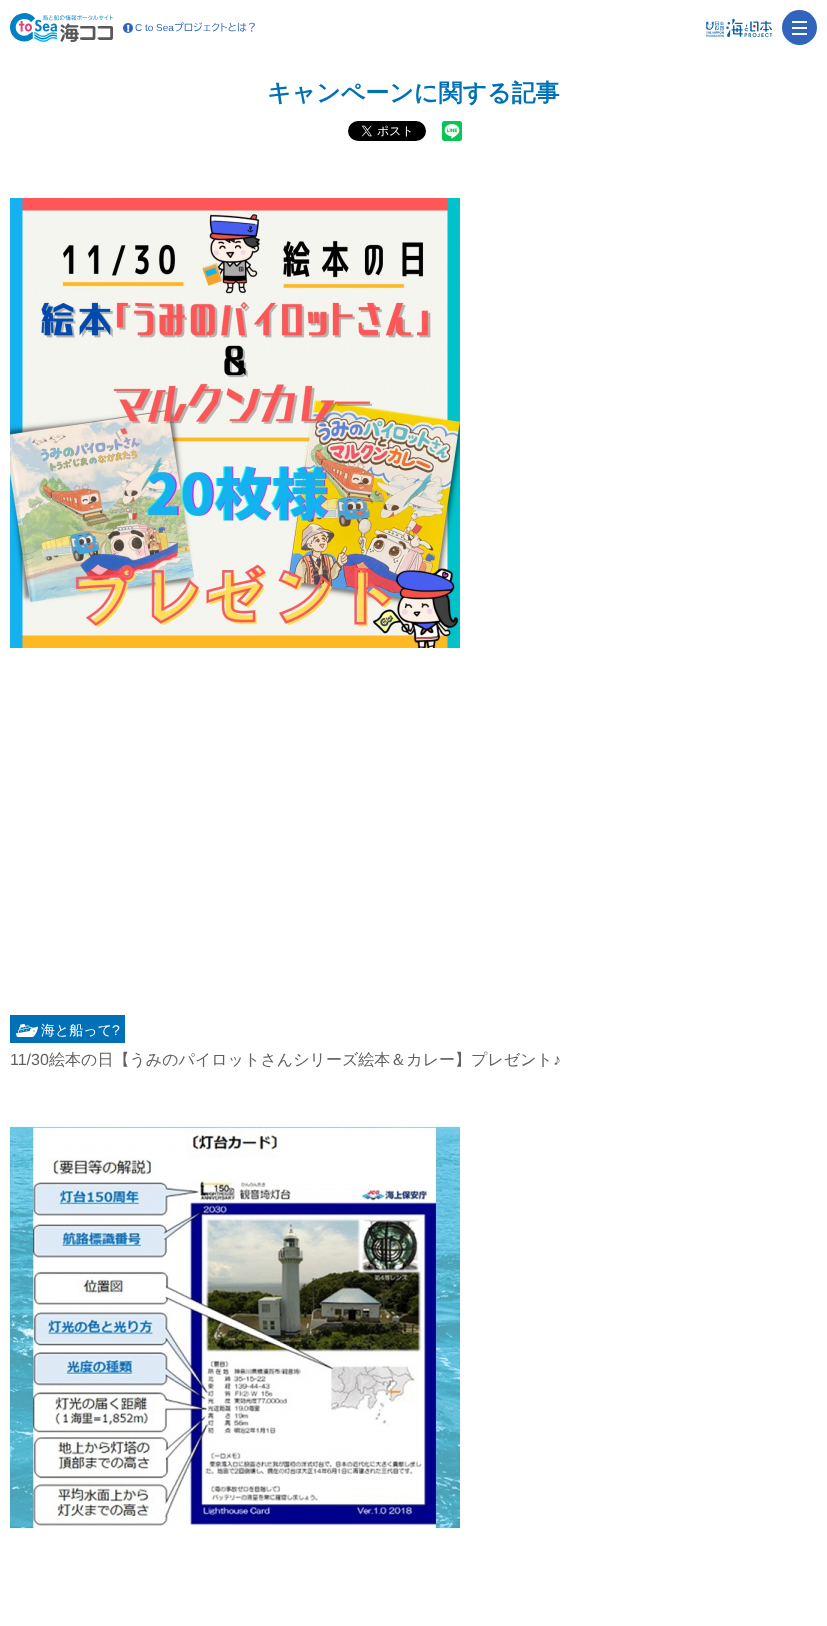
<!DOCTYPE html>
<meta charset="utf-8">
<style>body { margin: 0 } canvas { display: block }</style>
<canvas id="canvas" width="827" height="1626"></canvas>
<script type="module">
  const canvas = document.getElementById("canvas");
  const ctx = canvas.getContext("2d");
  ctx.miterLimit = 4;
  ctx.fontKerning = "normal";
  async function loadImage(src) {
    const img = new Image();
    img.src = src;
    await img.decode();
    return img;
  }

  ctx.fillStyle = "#ffffff";
  ctx.fillRect(0, 0, 827, 1626);
  ctx.drawImage(await loadImage("img1.png"), 10, 13, 103, 29);
  ctx.drawImage(await loadImage("img2.png"), 123, 23, 10, 10);
  ctx.font = "10px Liberation Sans";
  ctx.fillStyle = "#3164bc";
  ctx.fillText("C to Sea", 135, 31);
  ctx.font = "10px BIZ UDPGothic";
  ctx.fillText("プロジェクトとは？", 174, 31);
  ctx.drawImage(await loadImage("img3.png"), 706, 18, 66, 20);
  ctx.beginPath();
  ctx.arc(799.5, 27.5, 17.5, 0, Math.PI * 2);
  ctx.fill();
  ctx.fillStyle = "#ffffff";
  ctx.fillRect(792, 21, 15, 2);
  ctx.fillRect(792, 27, 15, 2);
  ctx.fillRect(792, 33, 15, 2);
  ctx.font = "bold 24px WenQuanYi Zen Hei";
  ctx.fillStyle = "#0071b6";
  ctx.fillText("キャンペーンに関する記事", 267, 101);
  ctx.drawImage(await loadImage("img4.png"), 348, 121, 78, 20);
  ctx.drawImage(await loadImage("img5.png"), 442, 121, 20, 20);
  ctx.drawImage(await loadImage("img6.png"), 10, 198, 450, 450);
  ctx.fillRect(10, 1015, 115, 28);
  ctx.drawImage(await loadImage("img7.png"), 16, 1023, 22, 14);
  ctx.font = "500 14px WenQuanYi Zen Hei";
  ctx.fillStyle = "#ffffff";
  ctx.fillText("海と船って", 41, 1035);
  ctx.font = "14px Liberation Sans";
  ctx.fillText("?", 112, 1035);
  ctx.font = "16px Liberation Sans";
  ctx.fillStyle = "#606060";
  ctx.fillText("11/30", 10, 1065);
  ctx.font = "500 16px WenQuanYi Zen Hei";
  ctx.fillText("絵本の日【うみのパイロットさんシリーズ絵本＆カレー】プレゼント", 49, 1065);
  ctx.font = "16px Liberation Sans";
  ctx.fillText("♪", 553, 1065);
  ctx.drawImage(await loadImage("img8.png"), 10, 1124, 450, 405);
</script>
